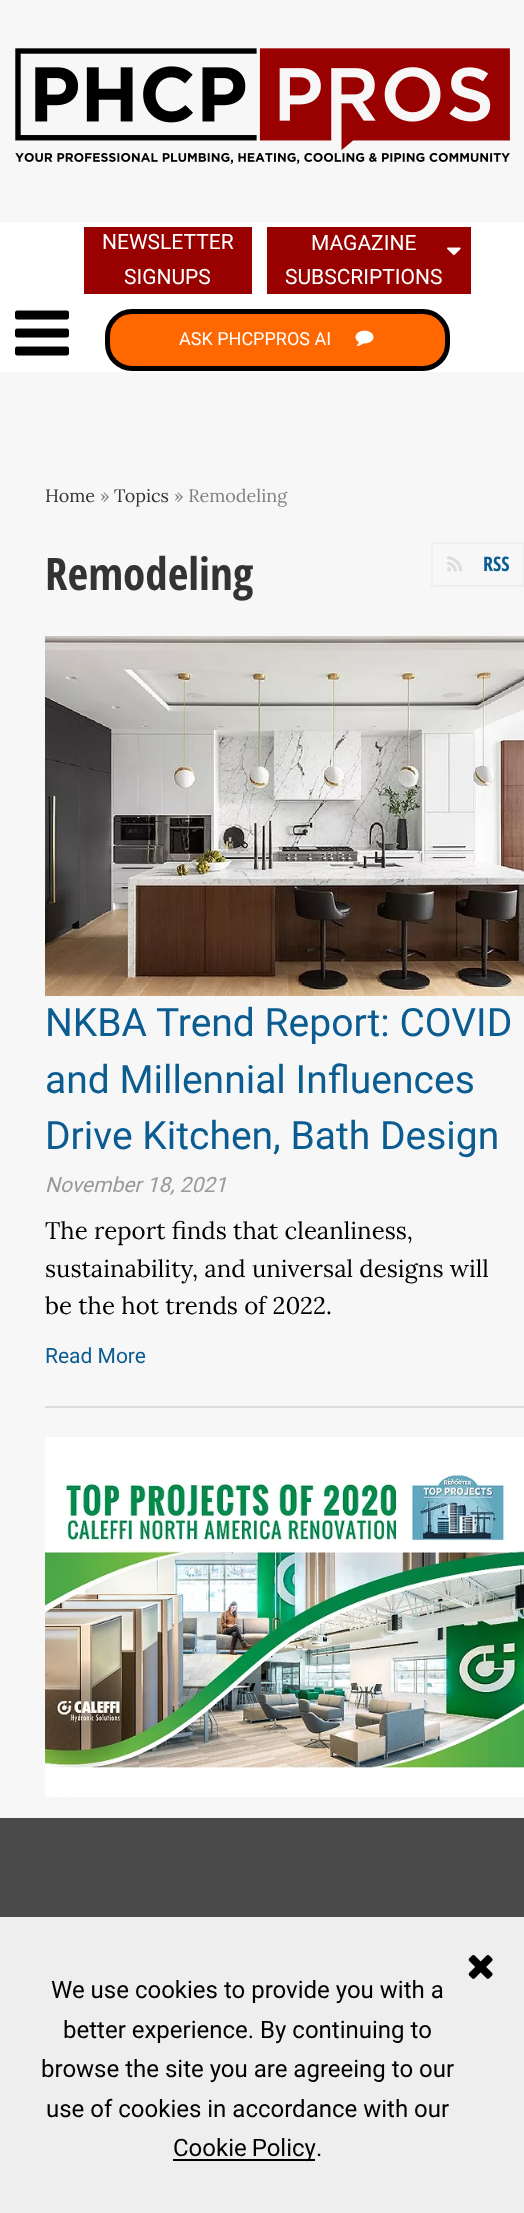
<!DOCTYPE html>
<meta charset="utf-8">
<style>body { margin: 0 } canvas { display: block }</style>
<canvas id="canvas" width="524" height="2213"></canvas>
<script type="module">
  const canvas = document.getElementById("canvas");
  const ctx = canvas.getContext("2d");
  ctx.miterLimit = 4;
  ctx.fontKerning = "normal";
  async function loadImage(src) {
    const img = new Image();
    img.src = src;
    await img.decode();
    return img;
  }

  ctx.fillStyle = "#f7f7f7";
  ctx.fillRect(0, 0, 524, 2213);
  ctx.drawImage(await loadImage("img1.png"), 15, 48, 495, 116);
  ctx.fillStyle = "#ffffff";
  ctx.fillRect(0, 222, 524, 150);
  ctx.drawImage(await loadImage("img2.png"), 15, 310, 54, 46);
  ctx.fillStyle = "#990000";
  ctx.fillRect(84, 227, 168, 67);
  ctx.font = "21px Roboto";
  ctx.fillStyle = "#ffffff";
  ctx.fillText("NEWSLETTER", 102, 249);
  ctx.fillText("SIGNUPS", 124, 284);
  ctx.fillStyle = "#990000";
  ctx.fillRect(267, 227, 204, 67);
  ctx.fillStyle = "#ffffff";
  ctx.fillText("MAGAZINE", 311, 250);
  ctx.drawImage(await loadImage("img3.png"), 447, 247, 14, 9);
  ctx.fillText("SUBSCRIPTIONS", 285, 284);
  ctx.fillStyle = "#ff6700";
  ctx.beginPath();
  ctx.roundRect(107.5, 311.5, 340, 57, 24.5);
  ctx.fill();
  ctx.strokeStyle = "#000000";
  ctx.lineWidth = 5;
  ctx.stroke();
  ctx.font = "18px Roboto";
  ctx.fillStyle = "#ffffff";
  ctx.fillText("ASK PHCPPROS AI", 179, 345);
  ctx.drawImage(await loadImage("img4.png"), 355, 330, 19, 16);
  ctx.font = "18px Lora";
  ctx.fillStyle = "#333333";
  ctx.fillText("Home", 45, 502);
  ctx.fillStyle = "#808080";
  ctx.fillText("»", 100, 502);
  ctx.fillStyle = "#333333";
  ctx.fillText("Topics", 114, 502);
  ctx.fillStyle = "#808080";
  ctx.fillText("» Remodeling", 174, 502);
  ctx.font = "bold 45px Open Sans Condensed";
  ctx.fillStyle = "#333333";
  ctx.fillText("Remodeling", 45, 590);
  ctx.strokeStyle = "#eeeeee";
  ctx.lineWidth = 2;
  ctx.strokeRect(432, 543, 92, 43);
  ctx.drawImage(await loadImage("img5.png"), 447, 556, 16, 16);
  ctx.font = "bold 20px Open Sans Condensed";
  ctx.fillStyle = "#0b5c91";
  ctx.fillText("RSS", 483, 571);
  ctx.fillStyle = "#dddddd";
  ctx.fillRect(45, 1406, 479, 2);
  ctx.drawImage(await loadImage("img6.png"), 45, 636, 479, 360);
  ctx.font = "39px Roboto";
  ctx.fillStyle = "#0b5c91";
  ctx.fillText("NKBA Trend Report: COVID", 45, 1036);
  ctx.fillText("and Millennial Influences", 45, 1093);
  ctx.fillText("Drive Kitchen, Bath Design", 45, 1149);
  ctx.font = "italic 21px Roboto";
  ctx.fillStyle = "#999999";
  ctx.fillText("November 18, 2021", 45, 1192);
  ctx.font = "24px Lora";
  ctx.fillStyle = "#000000";
  ctx.fillText("The report finds that cleanliness,", 45, 1239);
  ctx.fillText("sustainability, and universal designs will", 45, 1277);
  ctx.fillText("be the hot trends of 2022.", 45, 1314);
  ctx.font = "21px Roboto";
  ctx.fillStyle = "#0b5c91";
  ctx.fillText("Read More", 45, 1363);
  ctx.drawImage(await loadImage("img7.png"), 45, 1437, 479, 360);
  ctx.fillStyle = "rgba(0, 0, 0, 0.7)";
  ctx.fillRect(0, 1818, 524, 99);
  ctx.fillStyle = "#eeeeee";
  ctx.fillRect(0, 1917, 524, 296);
  ctx.drawImage(await loadImage("img8.png"), 468, 1955, 25, 24);
  ctx.font = "24px Roboto";
  ctx.fillStyle = "#000000";
  ctx.fillText("We use cookies to provide you with a", 51, 1998);
  ctx.fillText("better experience. By continuing to", 63, 2038);
  ctx.fillText("browse the site you are agreeing to our", 41, 2077);
  ctx.fillText("use of cookies in accordance with our", 46, 2117);
  ctx.fillRect(173, 2159, 142, 2);
  ctx.wordSpacing = "-1px";
  ctx.fillText("Cookie Policy", 173, 2156);
  ctx.wordSpacing = "0px";
  ctx.fillText(".", 316, 2156);
</script>
